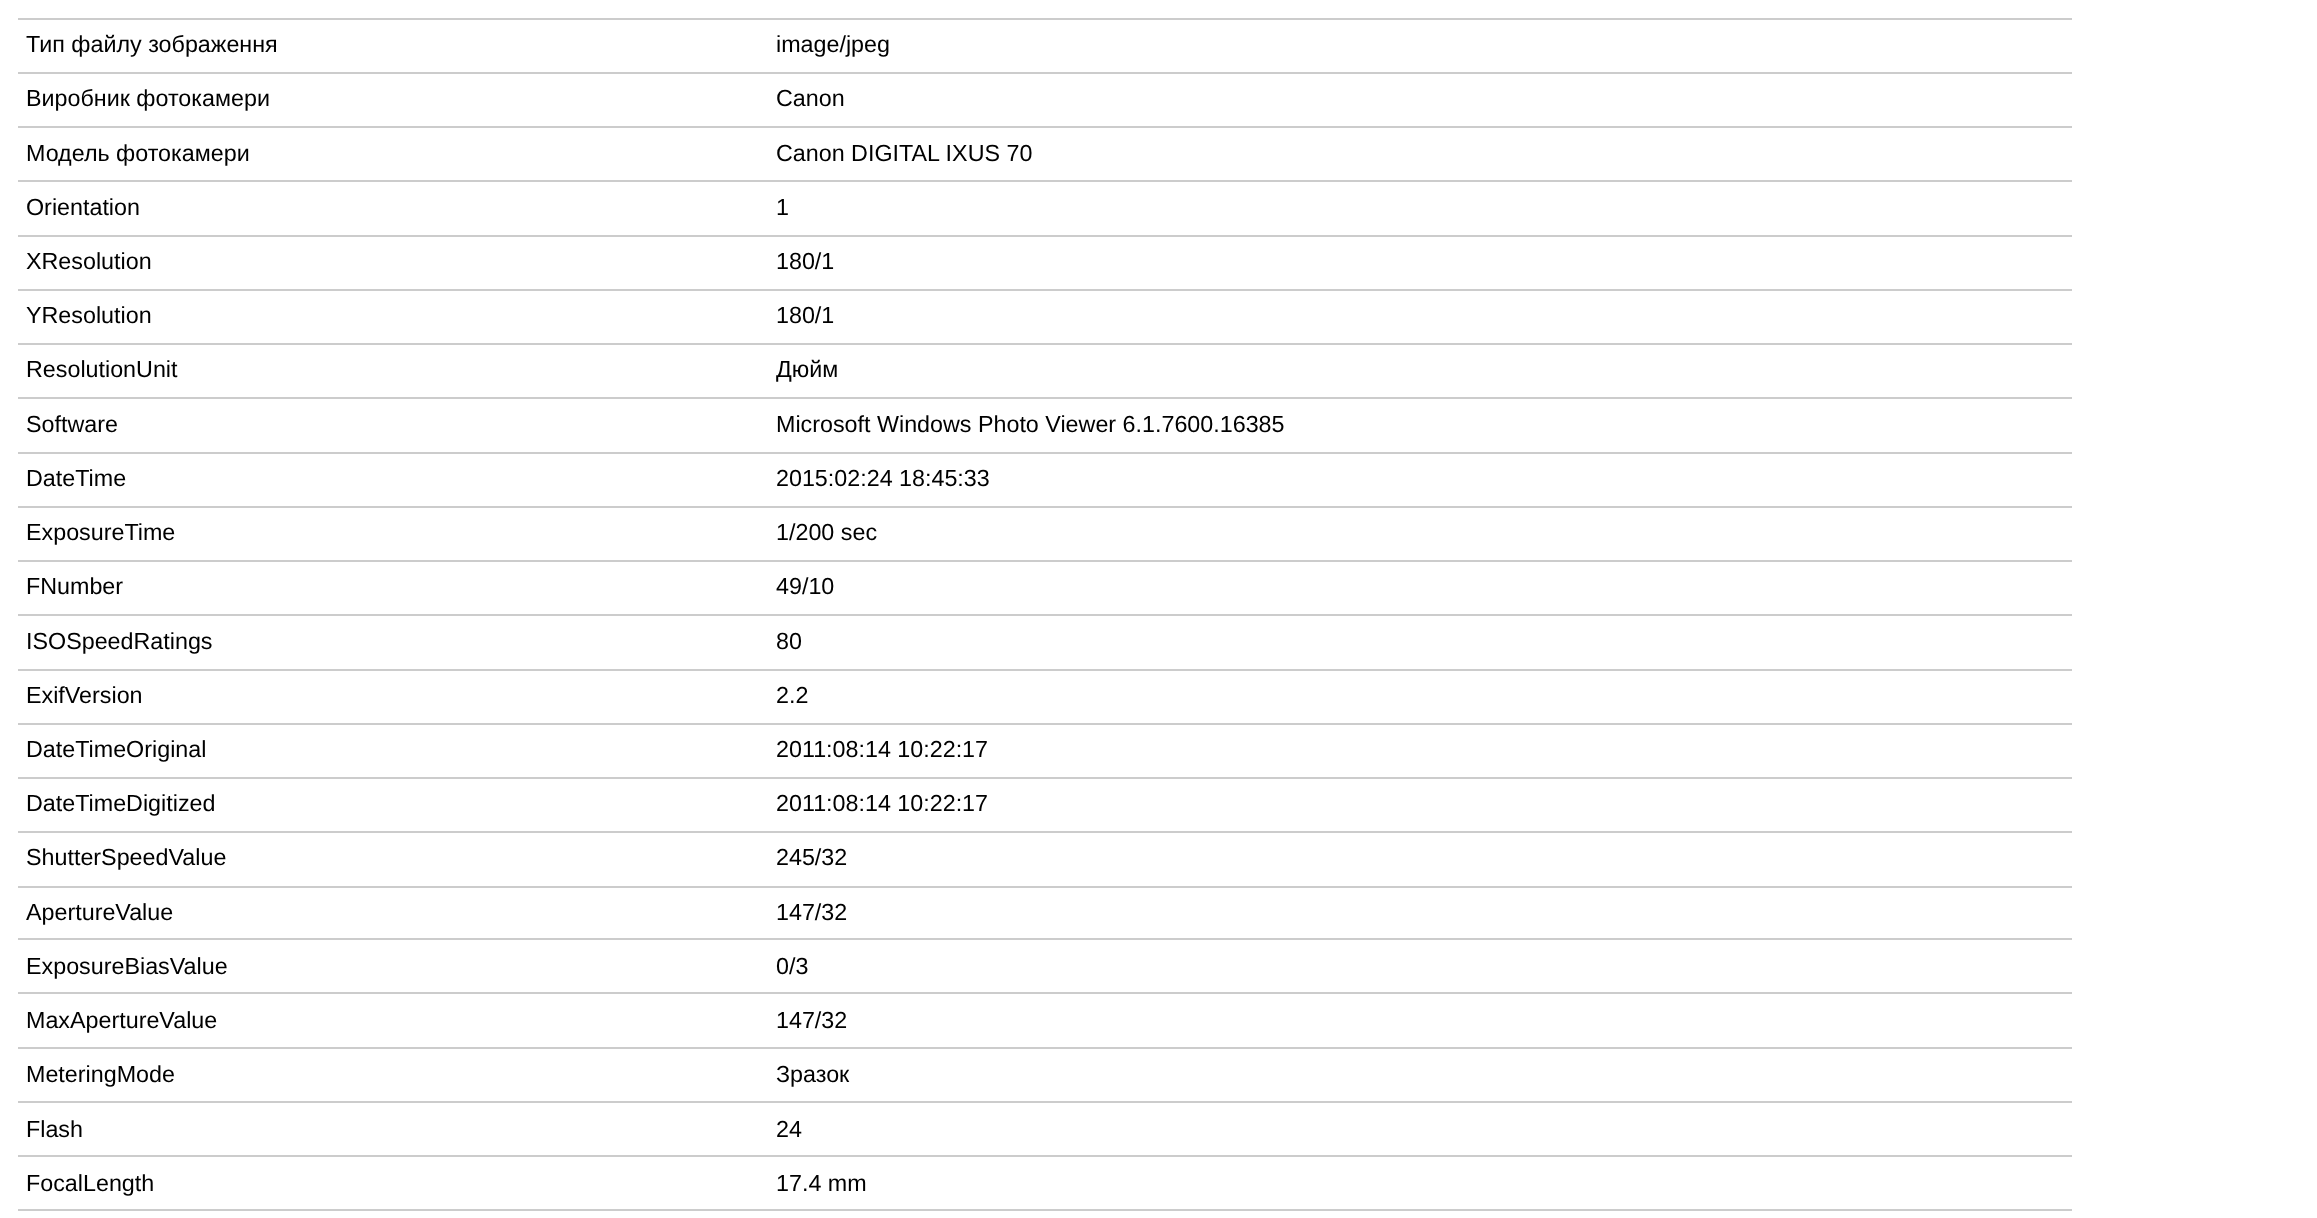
<!DOCTYPE html>
<meta charset="utf-8">
<style>body { margin: 0 } canvas { display: block }</style>
<canvas id="canvas" width="2317" height="1218"></canvas>
<script type="module">
  const canvas = document.getElementById("canvas");
  const ctx = canvas.getContext("2d");
  ctx.miterLimit = 4;
  ctx.fontKerning = "normal";

  ctx.fillStyle = "#ffffff";
  ctx.fillRect(0, 0, 2317, 1218);
  ctx.fillStyle = "#cccccc";
  ctx.fillRect(18, 18, 2054, 2);
  ctx.fillRect(18, 72, 2054, 2);
  ctx.font = "23.3px Liberation Sans";
  ctx.fillStyle = "#000000";
  ctx.fillText("Тип файлу зображення", 26, 52);
  ctx.fillText("image/jpeg", 776, 52);
  ctx.fillStyle = "#cccccc";
  ctx.fillRect(18, 126, 2054, 2);
  ctx.fillStyle = "#000000";
  ctx.fillText("Виробник фотокамери", 26, 106);
  ctx.fillText("Canon", 776, 106);
  ctx.fillStyle = "#cccccc";
  ctx.fillRect(18, 180, 2054, 2);
  ctx.fillStyle = "#000000";
  ctx.fillText("Модель фотокамери", 26, 161);
  ctx.fillText("Canon DIGITAL IXUS 70", 776, 161);
  ctx.fillStyle = "#cccccc";
  ctx.fillRect(18, 235, 2054, 2);
  ctx.fillStyle = "#000000";
  ctx.fillText("Orientation", 26, 215);
  ctx.fillText("1", 776, 215);
  ctx.fillStyle = "#cccccc";
  ctx.fillRect(18, 289, 2054, 2);
  ctx.fillStyle = "#000000";
  ctx.fillText("XResolution", 26, 269);
  ctx.fillText("180/1", 776, 269);
  ctx.fillStyle = "#cccccc";
  ctx.fillRect(18, 343, 2054, 2);
  ctx.fillStyle = "#000000";
  ctx.fillText("YResolution", 26, 323);
  ctx.fillText("180/1", 776, 323);
  ctx.fillStyle = "#cccccc";
  ctx.fillRect(18, 397, 2054, 2);
  ctx.fillStyle = "#000000";
  ctx.fillText("ResolutionUnit", 26, 377);
  ctx.fillText("Дюйм", 776, 377);
  ctx.fillStyle = "#cccccc";
  ctx.fillRect(18, 452, 2054, 2);
  ctx.fillStyle = "#000000";
  ctx.fillText("Software", 26, 432);
  ctx.fillText("Microsoft Windows Photo Viewer 6.1.7600.16385", 776, 432);
  ctx.fillStyle = "#cccccc";
  ctx.fillRect(18, 506, 2054, 2);
  ctx.fillStyle = "#000000";
  ctx.fillText("DateTime", 26, 486);
  ctx.fillText("2015:02:24 18:45:33", 776, 486);
  ctx.fillStyle = "#cccccc";
  ctx.fillRect(18, 560, 2054, 2);
  ctx.fillStyle = "#000000";
  ctx.fillText("ExposureTime", 26, 540);
  ctx.fillText("1/200 sec", 776, 540);
  ctx.fillStyle = "#cccccc";
  ctx.fillRect(18, 614, 2054, 2);
  ctx.fillStyle = "#000000";
  ctx.fillText("FNumber", 26, 594);
  ctx.fillText("49/10", 776, 594);
  ctx.fillStyle = "#cccccc";
  ctx.fillRect(18, 669, 2054, 2);
  ctx.fillStyle = "#000000";
  ctx.fillText("ISOSpeedRatings", 26, 649);
  ctx.fillText("80", 776, 649);
  ctx.fillStyle = "#cccccc";
  ctx.fillRect(18, 723, 2054, 2);
  ctx.fillStyle = "#000000";
  ctx.fillText("ExifVersion", 26, 703);
  ctx.fillText("2.2", 776, 703);
  ctx.fillStyle = "#cccccc";
  ctx.fillRect(18, 777, 2054, 2);
  ctx.fillStyle = "#000000";
  ctx.fillText("DateTimeOriginal", 26, 757);
  ctx.fillText("2011:08:14 10:22:17", 776, 757);
  ctx.fillStyle = "#cccccc";
  ctx.fillRect(18, 831, 2054, 2);
  ctx.fillStyle = "#000000";
  ctx.fillText("DateTimeDigitized", 26, 811);
  ctx.fillText("2011:08:14 10:22:17", 776, 811);
  ctx.fillStyle = "#cccccc";
  ctx.fillRect(18, 886, 2054, 2);
  ctx.fillStyle = "#000000";
  ctx.fillText("ShutterSpeedValue", 26, 865);
  ctx.fillText("245/32", 776, 865);
  ctx.fillStyle = "#cccccc";
  ctx.fillRect(18, 938, 2054, 2);
  ctx.fillStyle = "#000000";
  ctx.fillText("ApertureValue", 26, 920);
  ctx.fillText("147/32", 776, 920);
  ctx.fillStyle = "#cccccc";
  ctx.fillRect(18, 992, 2054, 2);
  ctx.fillStyle = "#000000";
  ctx.fillText("ExposureBiasValue", 26, 974);
  ctx.fillText("0/3", 776, 974);
  ctx.fillStyle = "#cccccc";
  ctx.fillRect(18, 1047, 2054, 2);
  ctx.fillStyle = "#000000";
  ctx.fillText("MaxApertureValue", 26, 1028);
  ctx.fillText("147/32", 776, 1028);
  ctx.fillStyle = "#cccccc";
  ctx.fillRect(18, 1101, 2054, 2);
  ctx.fillStyle = "#000000";
  ctx.fillText("MeteringMode", 26, 1082);
  ctx.fillText("Зразок", 776, 1082);
  ctx.fillStyle = "#cccccc";
  ctx.fillRect(18, 1155, 2054, 2);
  ctx.fillStyle = "#000000";
  ctx.fillText("Flash", 26, 1137);
  ctx.fillText("24", 776, 1137);
  ctx.fillStyle = "#cccccc";
  ctx.fillRect(18, 1209, 2054, 2);
  ctx.fillStyle = "#000000";
  ctx.fillText("FocalLength", 26, 1191);
  ctx.fillText("17.4 mm", 776, 1191);
</script>
